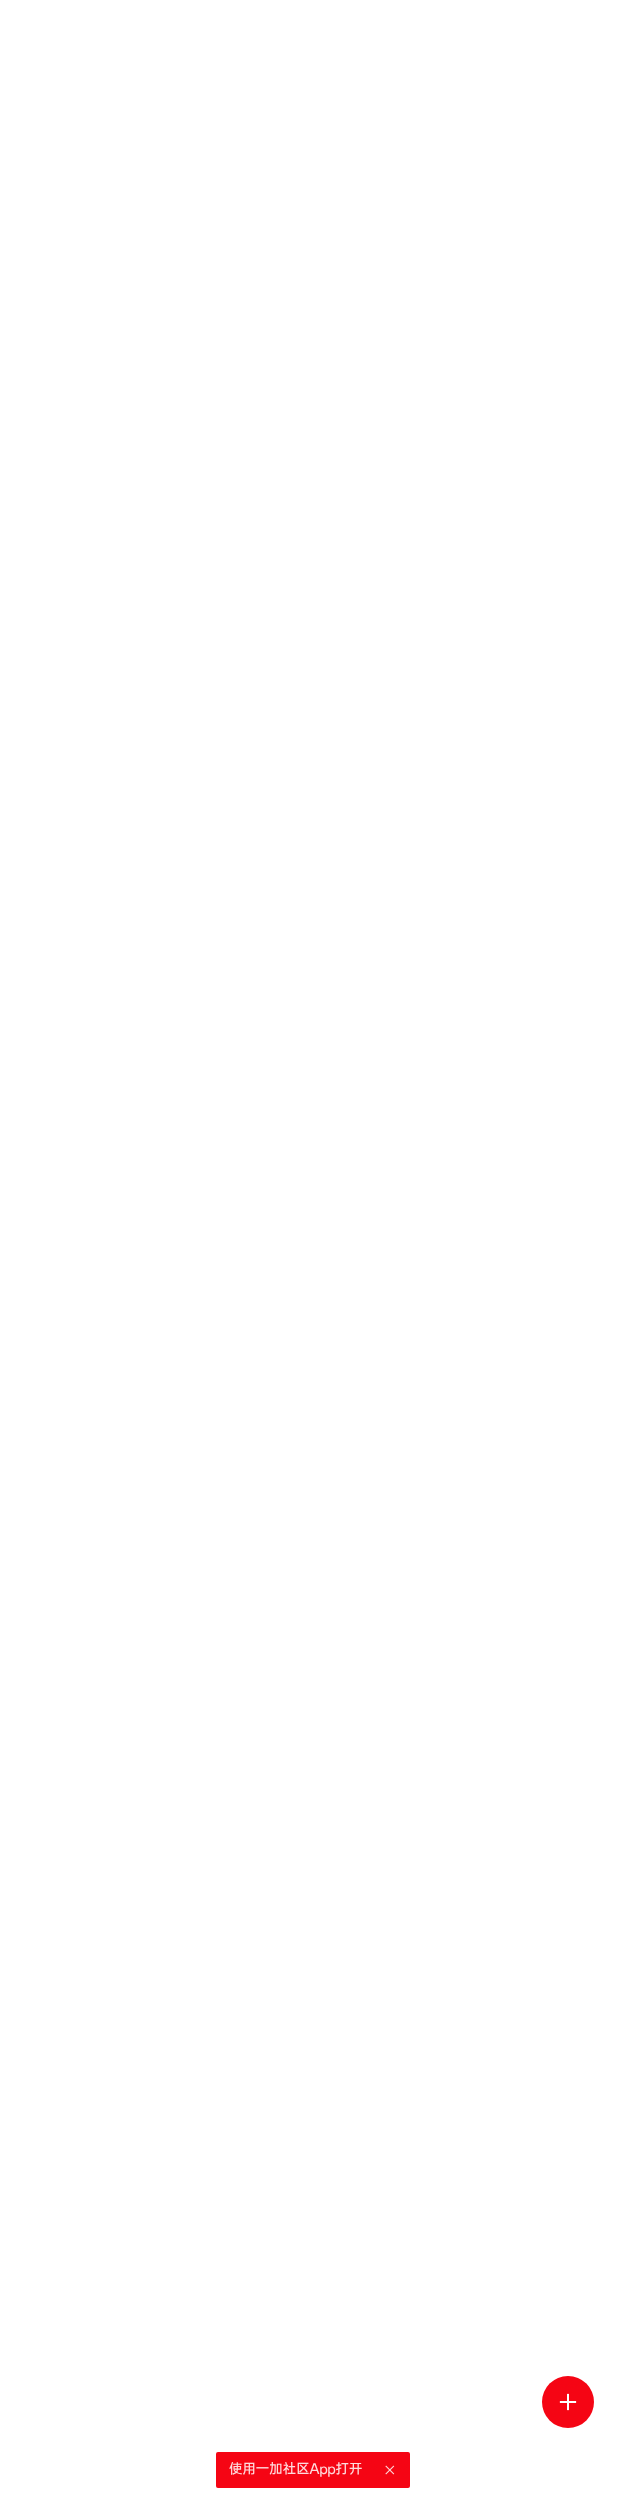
<!DOCTYPE html>
<meta charset="utf-8">
<style>body { margin: 0 } canvas { display: block }</style>
<canvas id="canvas" width="626" height="2516"></canvas>
<script type="module">
  const canvas = document.getElementById("canvas");
  const ctx = canvas.getContext("2d");
  ctx.miterLimit = 4;
  ctx.fontKerning = "normal";
  async function loadImage(src) {
    const img = new Image();
    img.src = src;
    await img.decode();
    return img;
  }

  ctx.fillStyle = "#ffffff";
  ctx.fillRect(0, 0, 626, 2516);
  ctx.fillStyle = "#f50514";
  ctx.beginPath();
  ctx.arc(568, 2402, 26, 0, Math.PI * 2);
  ctx.fill();
  ctx.drawImage(await loadImage("img1.png"), 559, 2393, 18, 18);
  ctx.beginPath();
  ctx.roundRect(216, 2452, 194, 36, 2);
  ctx.fill();
  ctx.font = "14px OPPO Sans";
  ctx.fillStyle = "#fedadc";
  ctx.fillText("使用一加社区App打开", 229, 2474);
  ctx.drawImage(await loadImage("img2.png"), 385, 2465, 10, 10);
</script>
